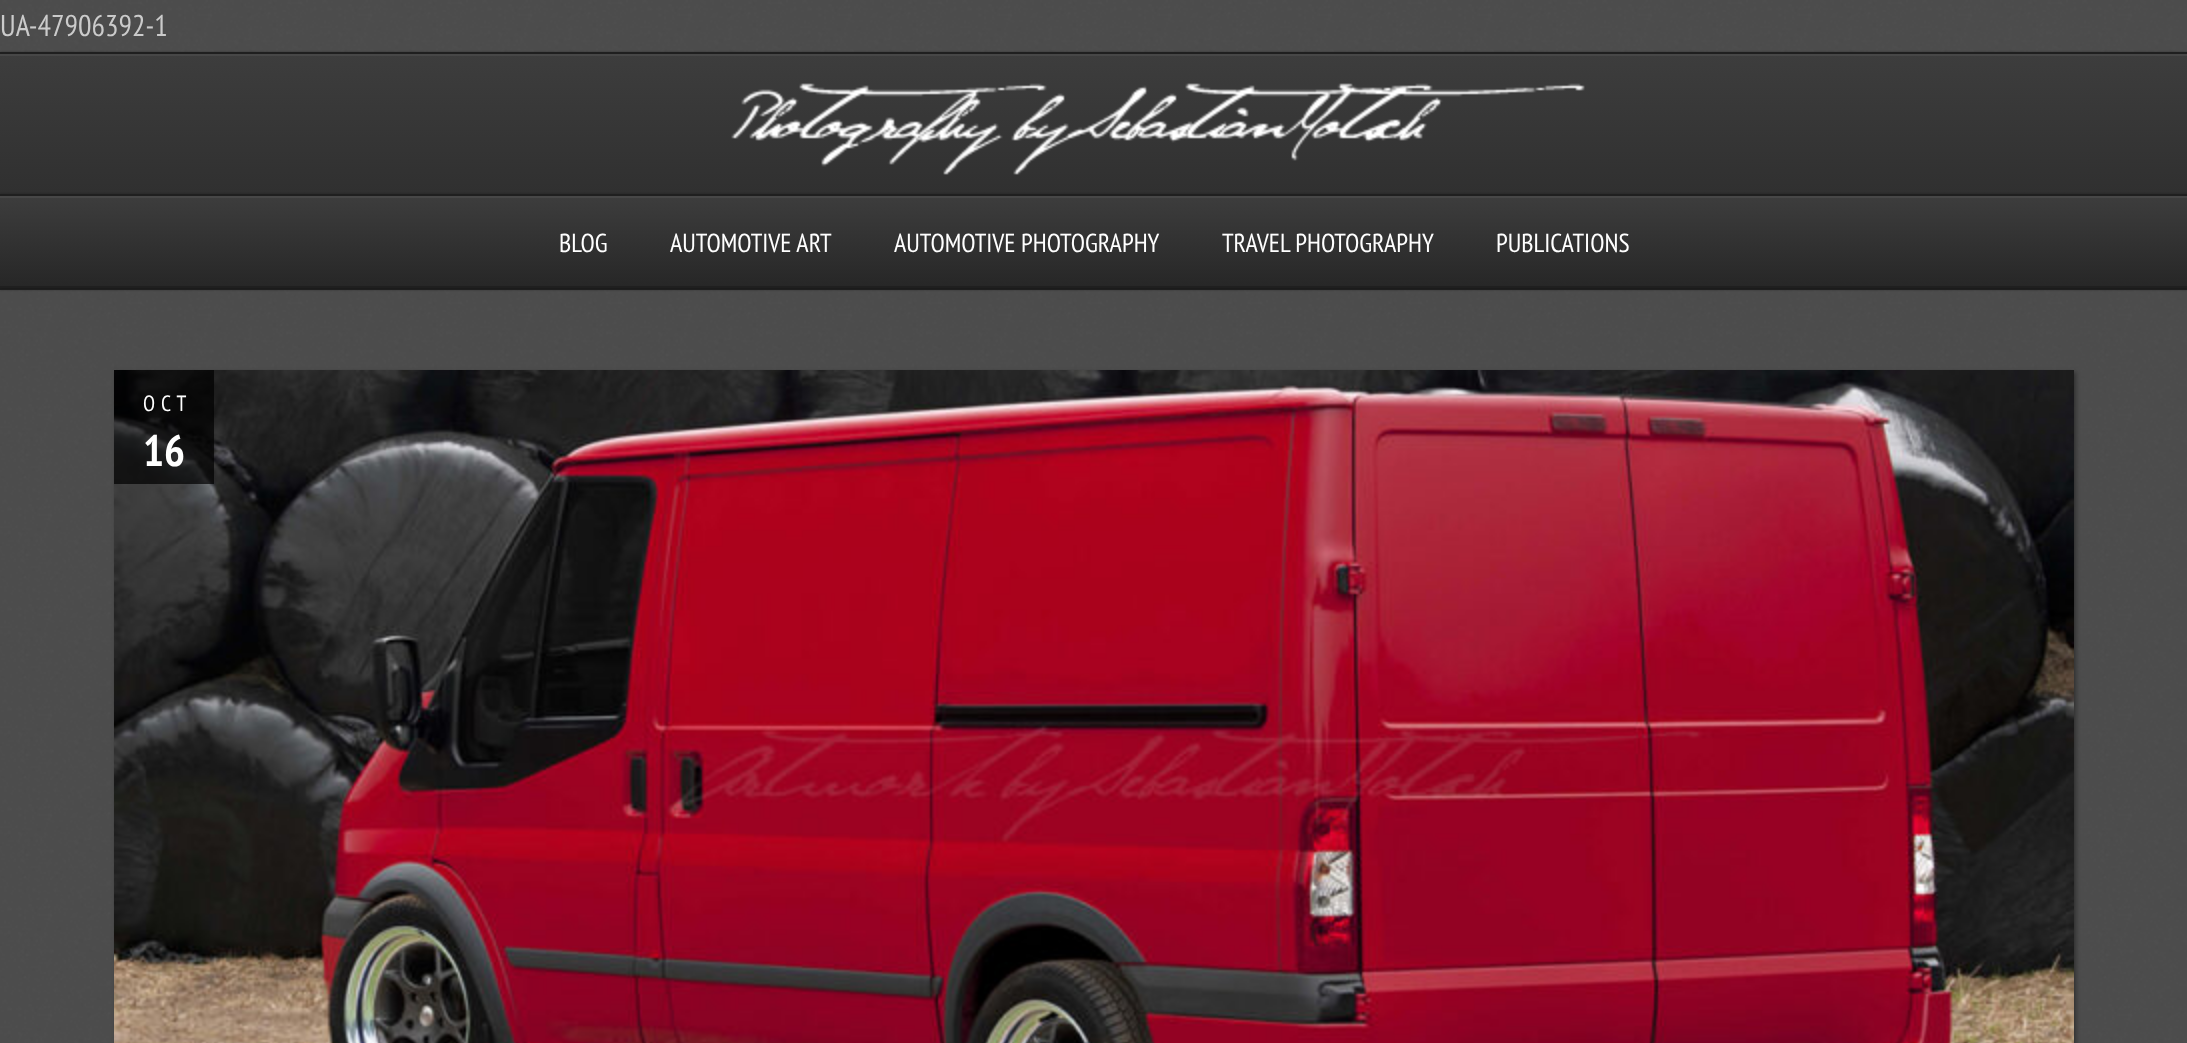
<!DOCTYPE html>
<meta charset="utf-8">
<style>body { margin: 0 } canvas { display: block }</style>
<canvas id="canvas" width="2187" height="1043"></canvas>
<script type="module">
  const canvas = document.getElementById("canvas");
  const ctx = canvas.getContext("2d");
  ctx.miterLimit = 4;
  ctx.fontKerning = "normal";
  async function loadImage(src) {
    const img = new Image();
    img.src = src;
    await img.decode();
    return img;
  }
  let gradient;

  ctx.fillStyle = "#6a6a6a";
  ctx.fillRect(0, 0, 2187, 1043);
  ctx.drawImage(await loadImage("img1.png"), 0, 0, 2187, 1043);
  ctx.font = "30px PT Sans Narrow";
  ctx.fillStyle = "#cbcbcb";
  ctx.fillText("UA-47906392-1", 0, 36);
  ctx.fillStyle = "rgba(0, 0, 0, 0.3)";
  ctx.filter = "blur(1px)";
  ctx.beginPath();
  ctx.rect(0, 52, 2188, 238);
  ctx.fill();
  ctx.filter = "none";
  gradient = ctx.createLinearGradient(1094, 54, 1094, 288);
  gradient.addColorStop(0, "#3d3d3d");
  gradient.addColorStop(1, "#272727");
  ctx.fillStyle = gradient;
  ctx.fillRect(0, 56, 2187, 138);
  ctx.fillStyle = "#474747";
  ctx.fillRect(0, 54, 2187, 2);
  ctx.fillStyle = "#1f1f1f";
  ctx.fillRect(0, 52, 2187, 2);
  ctx.fillRect(0, 288, 2187, 2);
  ctx.drawImage(await loadImage("img2.png"), 731, 83, 854, 92);
  ctx.fillStyle = "rgba(0, 0, 0, 0.3)";
  ctx.filter = "blur(1px)";
  ctx.beginPath();
  ctx.rect(0, 194, 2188, 94);
  ctx.fill();
  ctx.filter = "none";
  gradient = ctx.createLinearGradient(1094, 196, 1094, 286);
  gradient.addColorStop(0, "#3d3d3d");
  gradient.addColorStop(1, "#272727");
  ctx.fillStyle = gradient;
  ctx.fillRect(0, 198, 2187, 88);
  ctx.fillStyle = "#474747";
  ctx.fillRect(0, 196, 2187, 2);
  ctx.fillStyle = "#1f1f1f";
  ctx.fillRect(0, 194, 2187, 2);
  ctx.fillRect(0, 286, 2187, 2);
  ctx.font = "26px PT Sans Narrow";
  ctx.fillStyle = "#ffffff";
  ctx.fillText("BLOG", 559, 252);
  ctx.fillText("AUTOMOTIVE ART", 670, 252);
  ctx.fillText("AUTOMOTIVE PHOTOGRAPHY", 894, 252);
  ctx.fillText("TRAVEL PHOTOGRAPHY", 1222, 252);
  ctx.fillText("PUBLICATIONS", 1496, 252);
  ctx.fillStyle = "rgba(43, 43, 43, 0.8)";
  ctx.filter = "blur(2px)";
  ctx.beginPath();
  ctx.rect(116, 372, 1960, 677);
  ctx.fill();
  ctx.filter = "none";
  ctx.drawImage(await loadImage("img3.png"), 114, 370, 1960, 673);
  ctx.fillStyle = "rgba(0, 0, 0, 0.7)";
  ctx.fillRect(114, 370, 100, 114);
  ctx.letterSpacing = "6px";
  ctx.font = "22px PT Sans Narrow";
  ctx.fillStyle = "#ffffff";
  ctx.fillText("OCT", 143, 411);
  ctx.letterSpacing = "0px";
  ctx.font = "bold 44px PT Sans Narrow";
  ctx.fillText("16", 143, 466);
</script>
